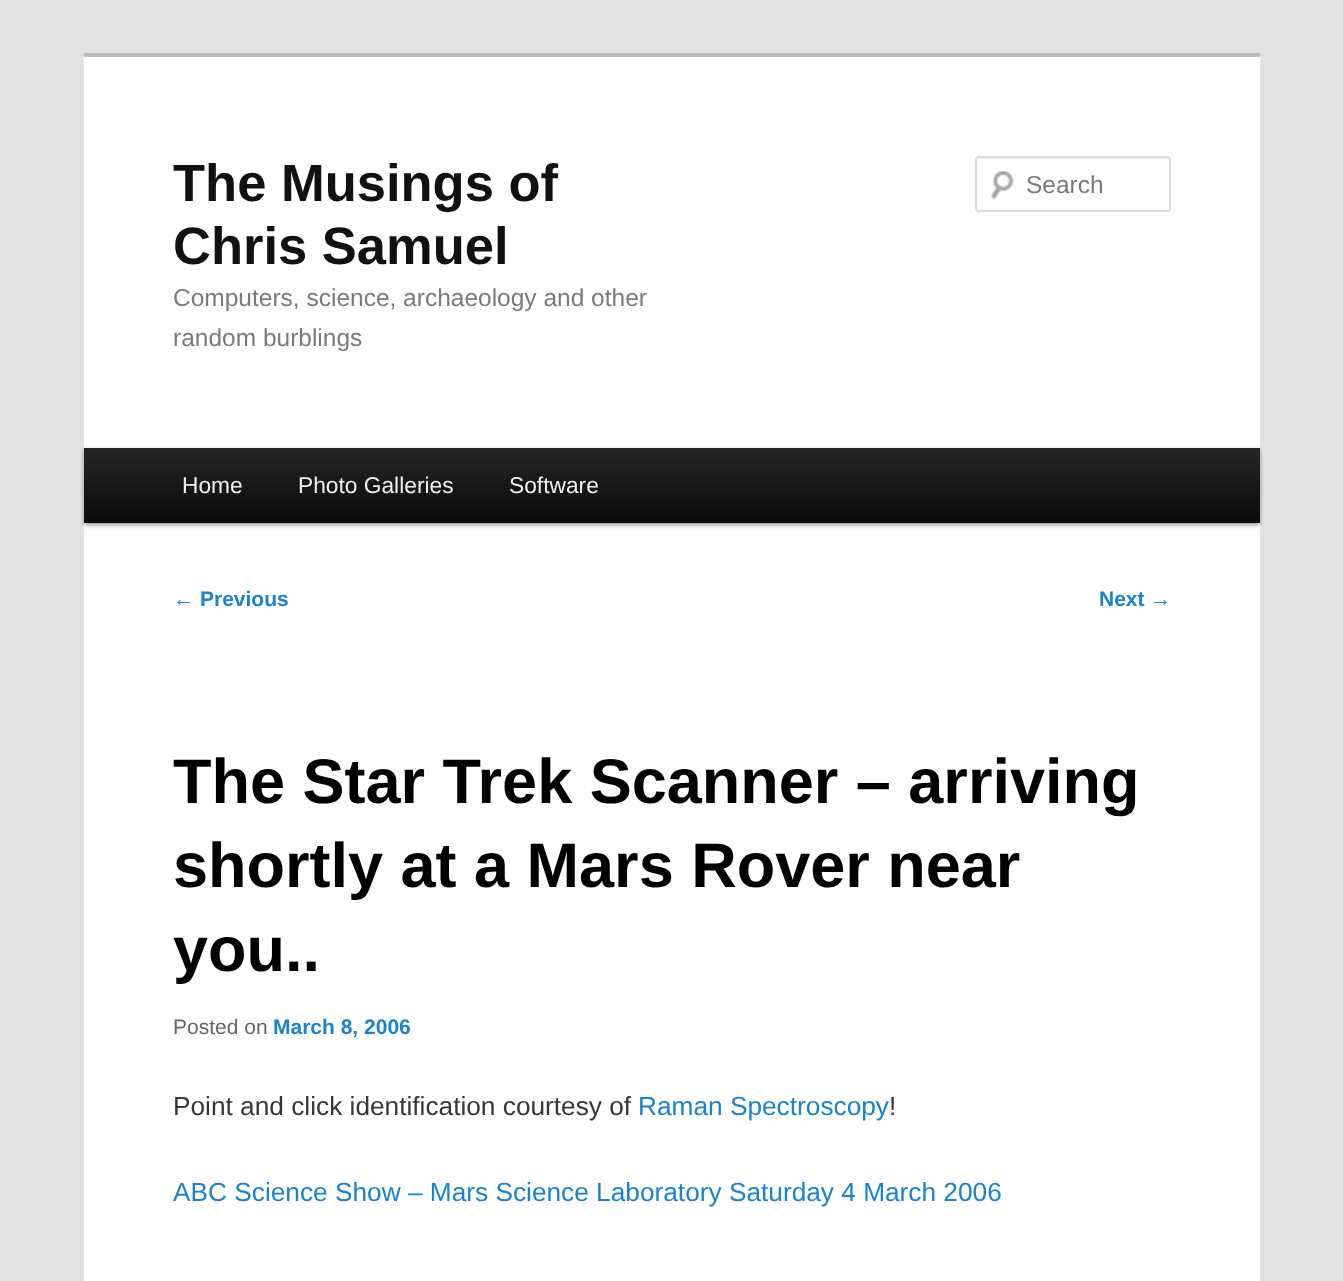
<!DOCTYPE html>
<meta charset="utf-8">
<style>body { margin: 0 } canvas { display: block }</style>
<canvas id="canvas" width="1343" height="1281"></canvas>
<script type="module">
  const canvas = document.getElementById("canvas");
  const ctx = canvas.getContext("2d");
  ctx.miterLimit = 4;
  ctx.fontKerning = "normal";
  async function loadImage(src) {
    const img = new Image();
    img.src = src;
    await img.decode();
    return img;
  }
  let gradient;

  ctx.fillStyle = "#e2e2e2";
  ctx.fillRect(0, 0, 1343, 1281);
  ctx.fillStyle = "#ffffff";
  ctx.fillRect(84, 57, 1176, 1224);
  ctx.fillStyle = "#bbbbbb";
  ctx.fillRect(84, 53, 1176, 4);
  ctx.font = "bold 52.5px Liberation Sans";
  ctx.fillStyle = "#111111";
  ctx.fillText("The Musings of", 173, 201);
  ctx.fillText("Chris Samuel", 173, 264);
  ctx.font = "24.5px Liberation Sans";
  ctx.fillStyle = "#7a7a7a";
  ctx.fillText("Computers, science, archaeology and other", 173, 306);
  ctx.fillText("random burblings", 173, 346);
  ctx.drawImage(await loadImage("img1.png"), 990, 170, 24, 30);
  ctx.fillStyle = "#e6e6e6";
  ctx.beginPath();
  ctx.moveTo(978, 159);
  ctx.lineTo(1167, 159);
  ctx.lineTo(1169, 160);
  ctx.lineTo(1169, 161);
  ctx.lineTo(1169, 160);
  ctx.bezierCurveTo(1169, 159, 1168, 158, 1167, 158);
  ctx.lineTo(979, 158);
  ctx.bezierCurveTo(978, 158, 977, 159, 977, 159);
  ctx.closePath();
  ctx.fill();
  ctx.beginPath();
  ctx.roundRect(976, 157, 194, 54, 3);
  ctx.strokeStyle = "#dddddd";
  ctx.lineWidth = 2;
  ctx.stroke();
  ctx.fillStyle = "#7a7a7a";
  ctx.fillText("Search", 1026, 193);
  ctx.fillStyle = "rgba(0, 0, 0, 0.4)";
  ctx.filter = "blur(2px)";
  ctx.beginPath();
  ctx.rect(84, 450, 1176, 75);
  ctx.fill();
  ctx.filter = "none";
  gradient = ctx.createLinearGradient(672, 448, 672, 523);
  gradient.addColorStop(0, "#252525");
  gradient.addColorStop(1, "#0a0a0a");
  ctx.fillStyle = gradient;
  ctx.fillRect(84, 448, 1176, 75);
  ctx.font = "22.75px Liberation Sans";
  ctx.fillStyle = "#eeeeee";
  ctx.fillText("Home", 182, 493);
  ctx.fillText("Photo Galleries", 298, 493);
  ctx.fillText("Software", 509, 493);
  ctx.font = "21px Liberation Sans";
  ctx.fillStyle = "#1982d1";
  ctx.fillText("←", 173, 606);
  ctx.font = "bold 21px Liberation Sans";
  ctx.fillText("Previous", 200, 606);
  ctx.fillText("Next", 1099, 606);
  ctx.font = "21px Liberation Sans";
  ctx.fillText("→", 1150, 606);
  ctx.font = "bold 63px Liberation Sans";
  ctx.fillStyle = "#000000";
  ctx.fillText("The Star Trek Scanner – arriving", 173, 803);
  ctx.fillText("shortly at a Mars Rover near", 173, 887);
  ctx.fillText("you..", 173, 971);
  ctx.font = "21px Liberation Sans";
  ctx.fillStyle = "#666666";
  ctx.fillText("Posted on", 173, 1034);
  ctx.font = "bold 21px Liberation Sans";
  ctx.fillStyle = "#1982d1";
  ctx.fillText("March 8, 2006", 273, 1034);
  ctx.font = "26.25px Liberation Sans";
  ctx.fillStyle = "#373737";
  ctx.fillText("Point and click identification courtesy of", 173, 1115);
  ctx.fillStyle = "#1982d1";
  ctx.fillText("Raman Spectroscopy", 638, 1115);
  ctx.fillStyle = "#373737";
  ctx.fillText("!", 889, 1115);
  ctx.fillStyle = "#1982d1";
  ctx.fillText("ABC Science Show – Mars Science Laboratory Saturday 4 March 2006", 173, 1201);
</script>
